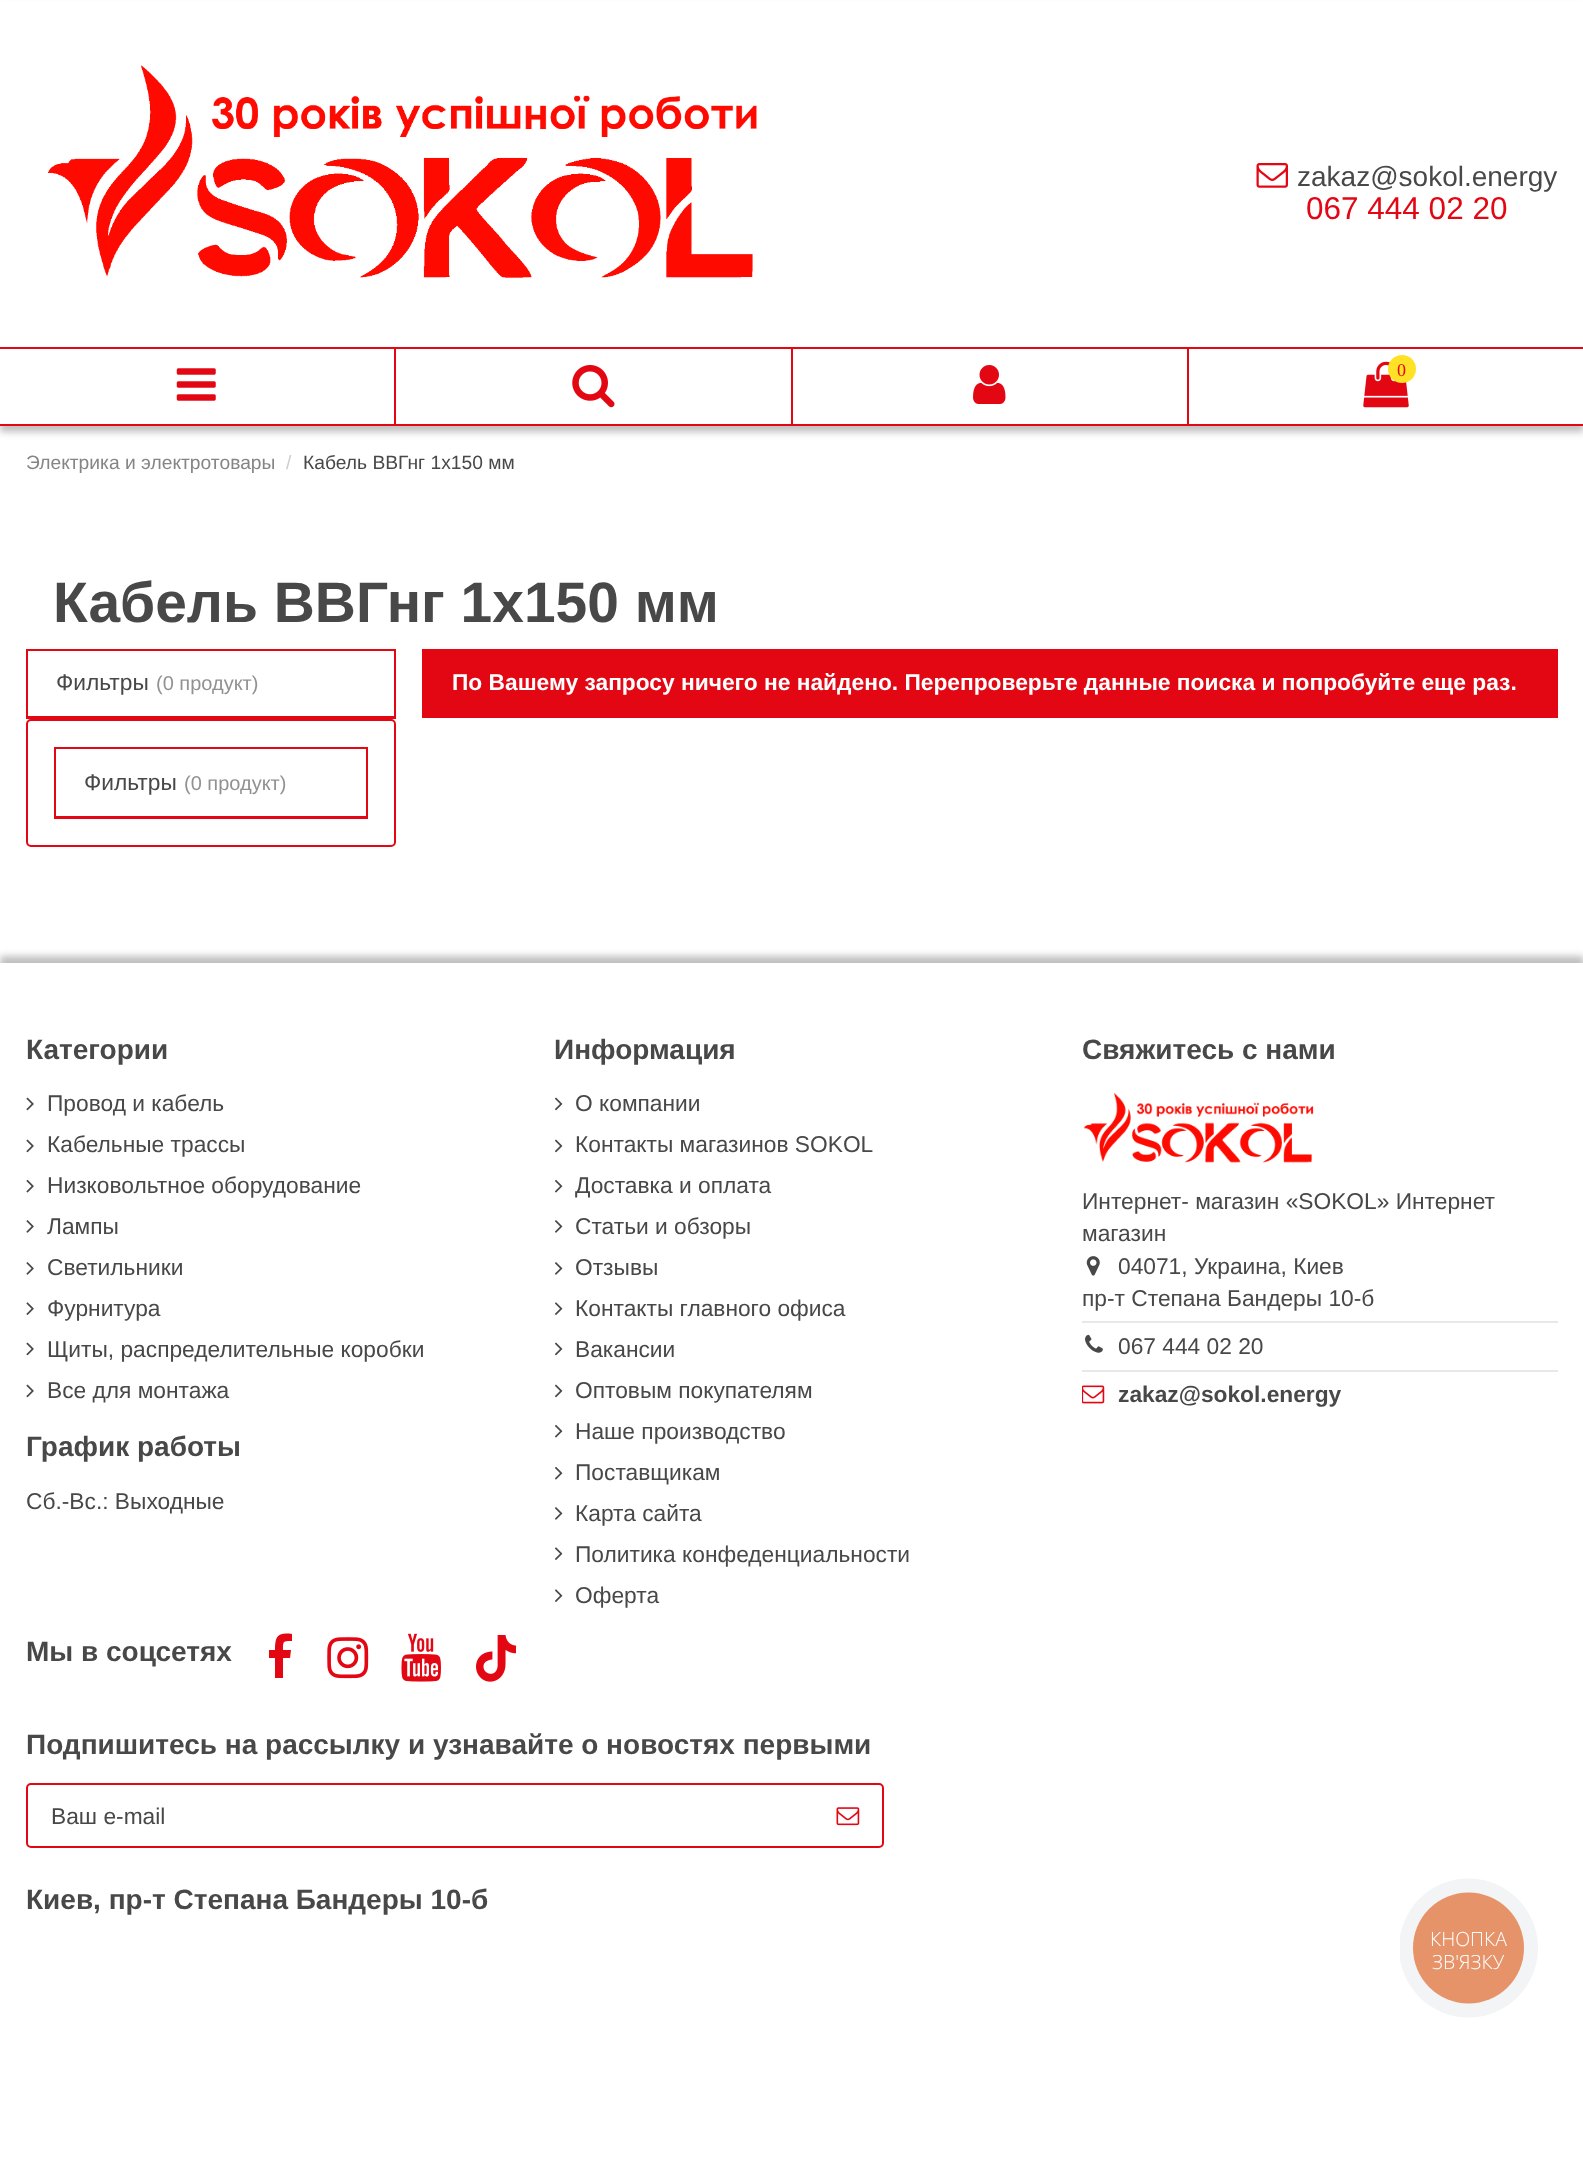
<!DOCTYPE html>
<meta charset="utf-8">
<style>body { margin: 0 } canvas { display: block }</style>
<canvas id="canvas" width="1583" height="2184"></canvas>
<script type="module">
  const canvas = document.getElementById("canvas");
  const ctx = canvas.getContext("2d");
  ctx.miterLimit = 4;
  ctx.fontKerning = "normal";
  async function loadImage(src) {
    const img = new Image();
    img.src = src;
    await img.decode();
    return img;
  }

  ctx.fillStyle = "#ffffff";
  ctx.fillRect(0, 0, 1583, 2184);
  ctx.fillStyle = "rgba(0, 0, 0, 0.25)";
  ctx.filter = "blur(3.5px)";
  ctx.beginPath();
  ctx.rect(0, 7, 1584, 425);
  ctx.fill();
  ctx.filter = "none";
  ctx.fillStyle = "#ffffff";
  ctx.fillRect(0, 1, 1583, 423);
  ctx.drawImage(await loadImage("img1.png"), 48, 65, 709, 213);
  ctx.drawImage(await loadImage("img2.png"), 1256, 163, 32, 25);
  ctx.font = "28px Liberation Sans";
  ctx.fillStyle = "#484848";
  ctx.fillText("zakaz@sokol.energy", 1297, 186);
  ctx.font = "31.5px Liberation Sans";
  ctx.fillStyle = "#e30714";
  ctx.fillText("067 444 02 20", 1306, 219);
  ctx.fillRect(0, 347, 1188, 2);
  ctx.fillRect(394, 347, 2, 78);
  ctx.fillRect(0, 424, 396, 2);
  ctx.drawImage(await loadImage("img3.png"), 176, 368, 40, 33);
  ctx.fillRect(791, 347, 2, 78);
  ctx.fillRect(396, 424, 397, 2);
  ctx.drawImage(await loadImage("img4.png"), 572, 365, 43, 43);
  ctx.fillRect(1187, 347, 2, 78);
  ctx.fillRect(793, 424, 790, 2);
  ctx.drawImage(await loadImage("img5.png"), 973, 365, 33, 39);
  ctx.fillRect(1188, 347, 395, 2);
  ctx.drawImage(await loadImage("img6.png"), 1363, 361, 46, 47);
  ctx.fillStyle = "#ffe125";
  ctx.beginPath();
  ctx.arc(1402, 369, 14, 0, Math.PI * 2);
  ctx.fill();
  ctx.font = "18px Liberation Serif";
  ctx.fillStyle = "#e30714";
  ctx.fillText("0", 1397, 376);
  ctx.font = "19.25px Liberation Sans";
  ctx.fillStyle = "#858585";
  ctx.fillText("Электрика и электротовары", 26, 469);
  ctx.fillStyle = "#cecece";
  ctx.fillText("/", 286, 469);
  ctx.fillStyle = "#484848";
  ctx.fillText("Кабель ВВГнг 1х150 мм", 303, 469);
  ctx.font = "bold 56.9px Liberation Sans";
  ctx.fillText("Кабель ВВГнг 1х150 мм", 53, 622);
  ctx.strokeStyle = "#e30714";
  ctx.lineWidth = 2;
  ctx.strokeRect(27, 650, 368, 68);
  ctx.fillStyle = "#e30714";
  ctx.fillRect(28, 716, 366, 1);
  ctx.font = "22.75px Liberation Sans";
  ctx.fillStyle = "#484848";
  ctx.fillText("Фильтры", 56, 690);
  ctx.font = "20px Liberation Sans";
  ctx.fillStyle = "#919191";
  ctx.fillText("(0 продукт)", 156, 690);
  ctx.beginPath();
  ctx.roundRect(27, 720, 368, 126, 4);
  ctx.stroke();
  ctx.strokeRect(55, 748, 312, 70);
  ctx.fillStyle = "#e30714";
  ctx.fillRect(56, 816, 310, 1);
  ctx.font = "22.75px Liberation Sans";
  ctx.fillStyle = "#484848";
  ctx.fillText("Фильтры", 84, 790);
  ctx.font = "20px Liberation Sans";
  ctx.fillStyle = "#919191";
  ctx.fillText("(0 продукт)", 184, 790);
  ctx.fillStyle = "#e30714";
  ctx.fillRect(422, 649, 1136, 69);
  ctx.font = "bold 22.75px Liberation Sans";
  ctx.fillStyle = "#ffffff";
  ctx.fillText("По Вашему запросу ничего не найдено. Перепроверьте данные поиска и попробуйте еще раз.", 452, 690);
  ctx.fillStyle = "rgba(0, 0, 0, 0.25)";
  ctx.filter = "blur(3.5px)";
  ctx.beginPath();
  ctx.rect(0, 956, 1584, 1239);
  ctx.fill();
  ctx.filter = "none";
  ctx.fillStyle = "#ffffff";
  ctx.fillRect(0, 963, 1583, 1221);
  ctx.font = "bold 28px Liberation Sans";
  ctx.fillStyle = "#484848";
  ctx.fillText("Категории", 26, 1059);
  ctx.drawImage(await loadImage("img7.png"), 26, 1097, 8, 14);
  ctx.font = "22.75px Liberation Sans";
  ctx.fillText("Провод и кабель", 47, 1111);
  ctx.drawImage(await loadImage("img7.png"), 26, 1139, 8, 14);
  ctx.fillText("Кабельные трассы", 47, 1152);
  ctx.drawImage(await loadImage("img8.png"), 26, 1179, 8, 14);
  ctx.fillText("Низковольтное оборудование", 47, 1193);
  ctx.drawImage(await loadImage("img9.png"), 26, 1220, 8, 13);
  ctx.fillText("Лампы", 47, 1234);
  ctx.drawImage(await loadImage("img9.png"), 26, 1262, 8, 13);
  ctx.fillText("Светильники", 47, 1275);
  ctx.drawImage(await loadImage("img10.png"), 26, 1302, 8, 13);
  ctx.fillText("Фурнитура", 47, 1316);
  ctx.drawImage(await loadImage("img7.png"), 26, 1342, 8, 14);
  ctx.fillText("Щиты, распределительные коробки", 47, 1357);
  ctx.drawImage(await loadImage("img7.png"), 26, 1384, 8, 14);
  ctx.fillText("Все для монтажа", 47, 1398);
  ctx.font = "bold 28px Liberation Sans";
  ctx.fillText("График работы", 26, 1456);
  ctx.font = "22.75px Liberation Sans";
  ctx.fillText("Сб.-Вс.: Выходные", 26, 1509);
  ctx.font = "bold 28px Liberation Sans";
  ctx.fillText("Информация", 554, 1059);
  ctx.drawImage(await loadImage("img11.png"), 555, 1097, 8, 14);
  ctx.font = "22.75px Liberation Sans";
  ctx.fillText("О компании", 575, 1111);
  ctx.drawImage(await loadImage("img11.png"), 555, 1139, 8, 14);
  ctx.fillText("Контакты магазинов SOKOL", 575, 1152);
  ctx.drawImage(await loadImage("img12.png"), 555, 1179, 8, 14);
  ctx.fillText("Доставка и оплата", 575, 1193);
  ctx.drawImage(await loadImage("img13.png"), 555, 1220, 8, 13);
  ctx.fillText("Статьи и обзоры", 575, 1234);
  ctx.drawImage(await loadImage("img13.png"), 555, 1262, 8, 13);
  ctx.fillText("Отзывы", 575, 1275);
  ctx.drawImage(await loadImage("img14.png"), 555, 1302, 8, 13);
  ctx.fillText("Контакты главного офиса", 575, 1316);
  ctx.drawImage(await loadImage("img11.png"), 555, 1342, 8, 14);
  ctx.fillText("Вакансии", 575, 1357);
  ctx.drawImage(await loadImage("img11.png"), 555, 1384, 8, 14);
  ctx.fillText("Оптовым покупателям", 575, 1398);
  ctx.drawImage(await loadImage("img12.png"), 555, 1424, 8, 14);
  ctx.fillText("Наше производство", 575, 1439);
  ctx.drawImage(await loadImage("img12.png"), 555, 1466, 8, 14);
  ctx.fillText("Поставщикам", 575, 1480);
  ctx.drawImage(await loadImage("img13.png"), 555, 1507, 8, 13);
  ctx.fillText("Карта сайта", 575, 1521);
  ctx.drawImage(await loadImage("img14.png"), 555, 1547, 8, 13);
  ctx.fillText("Политика конфеденциальности", 575, 1562);
  ctx.drawImage(await loadImage("img14.png"), 555, 1589, 8, 13);
  ctx.fillText("Оферта", 575, 1603);
  ctx.font = "bold 28px Liberation Sans";
  ctx.fillText("Свяжитесь с нами", 1082, 1059);
  ctx.drawImage(await loadImage("img15.png"), 1084, 1092, 230, 71);
  ctx.font = "22.75px Liberation Sans";
  ctx.fillText("Интернет- магазин «SOKOL» Интернет", 1082, 1209);
  ctx.fillText("магазин", 1082, 1241);
  ctx.drawImage(await loadImage("img16.png"), 1086, 1256, 14, 20);
  ctx.fillText("04071, Украина, Киев", 1118, 1274);
  ctx.fillText("пр-т Степана Бандеры 10-б", 1082, 1306);
  ctx.fillStyle = "#e8e8e8";
  ctx.fillRect(1082, 1321, 476, 2);
  ctx.drawImage(await loadImage("img17.png"), 1085, 1334, 18, 19);
  ctx.fillStyle = "#484848";
  ctx.fillText("067 444 02 20", 1118, 1354);
  ctx.fillStyle = "#e8e8e8";
  ctx.fillRect(1082, 1370, 476, 2);
  ctx.drawImage(await loadImage("img18.png"), 1082, 1385, 23, 19);
  ctx.font = "bold 22.75px Liberation Sans";
  ctx.fillStyle = "#484848";
  ctx.fillText("zakaz@sokol.energy", 1118, 1402);
  ctx.font = "bold 28px Liberation Sans";
  ctx.fillText("Мы в соцсетях", 26, 1661);
  ctx.fillStyle = "#e30613";
  ctx.beginPath();
  ctx.moveTo(292, 1634);
  ctx.lineTo(292, 1641);
  ctx.bezierCurveTo(283, 1641, 283, 1641, 283, 1650);
  ctx.lineTo(291, 1650);
  ctx.lineTo(290, 1658);
  ctx.lineTo(283, 1658);
  ctx.lineTo(283, 1678);
  ctx.lineTo(275, 1678);
  ctx.lineTo(275, 1658);
  ctx.lineTo(269, 1658);
  ctx.lineTo(269, 1650);
  ctx.lineTo(275, 1650);
  ctx.bezierCurveTo(275, 1637, 277, 1632, 292, 1634);
  ctx.closePath();
  ctx.fill();
  ctx.drawImage(await loadImage("img19.png"), 327, 1637, 42, 42);
  ctx.drawImage(await loadImage("img20.png"), 401, 1633, 40, 49);
  ctx.drawImage(await loadImage("img21.png"), 476, 1635, 40, 47);
  ctx.fillStyle = "#484848";
  ctx.fillText("Подпишитесь на рассылку и узнавайте о новостях первыми", 26, 1754);
  ctx.beginPath();
  ctx.roundRect(27, 1784, 856, 63, 4);
  ctx.stroke();
  ctx.font = "22.75px Liberation Sans";
  ctx.fillText("Ваш e-mail", 51, 1824);
  ctx.drawImage(await loadImage("img22.png"), 836, 1807, 24, 19);
  ctx.font = "bold 28px Liberation Sans";
  ctx.fillText("Киев, пр-т Степана Бандеры 10-б", 26, 1909);
  ctx.save();
  ctx.beginPath();
  ctx.rect(1400, 1878, 138, 140);
  ctx.clip();
  ctx.fillStyle = "#f2f4f5";
  ctx.beginPath();
  ctx.arc(1468.5, 1948, 69.5, 0, Math.PI * 2);
  ctx.fill();
  ctx.restore();
  ctx.fillStyle = "#e6936a";
  ctx.beginPath();
  ctx.arc(1468.5, 1948, 55.5, 0, Math.PI * 2);
  ctx.fill();
  ctx.font = "300 19.5px Open Sans";
  ctx.fillStyle = "#ffffff";
  ctx.fillText("КНОПКА", 1430, 1946);
  ctx.fillText("ЗВ'ЯЗКУ", 1432, 1969);
</script>
